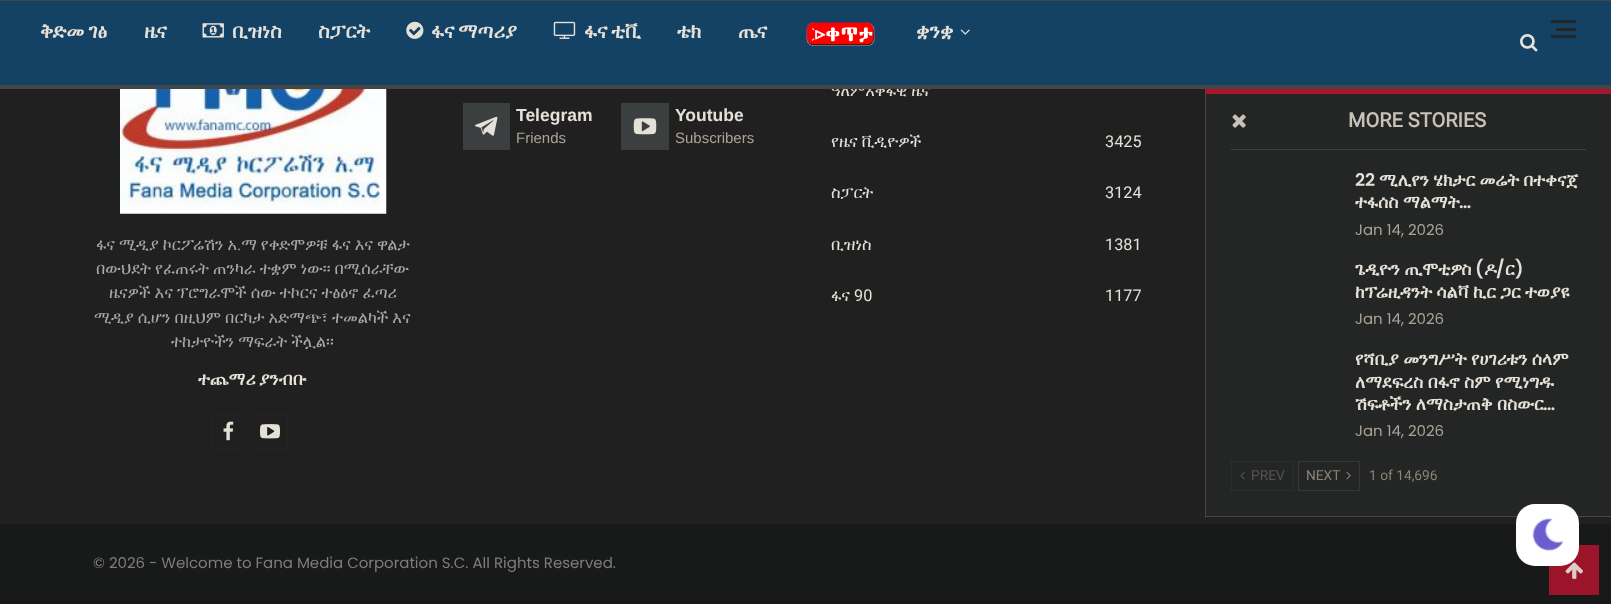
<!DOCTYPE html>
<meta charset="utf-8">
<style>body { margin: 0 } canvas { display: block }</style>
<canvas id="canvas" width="1611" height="604"></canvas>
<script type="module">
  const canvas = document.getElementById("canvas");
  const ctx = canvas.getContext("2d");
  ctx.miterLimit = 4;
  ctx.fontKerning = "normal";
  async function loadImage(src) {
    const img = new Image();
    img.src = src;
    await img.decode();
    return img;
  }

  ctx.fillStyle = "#202020";
  ctx.fillRect(0, 0, 1611, 604);
  ctx.fillStyle = "#134265";
  ctx.fillRect(0, 1, 1611, 84);
  ctx.fillStyle = "#434646";
  ctx.fillRect(0, 0, 1611, 1);
  ctx.font = "16.25px FreeSerif";
  ctx.fillStyle = "#e5e0d8";
  ctx.fillText("ዓለምአቀፋዊ ዜና", 831, 96);
  ctx.fillStyle = "#434646";
  ctx.fillRect(0, 85, 1611, 4);
  ctx.wordSpacing = "-1px";
  ctx.font = "bold 20px FreeSerif";
  ctx.fillStyle = "#e5e0d8";
  ctx.fillText("ቅድመ ገፅ", 40, 38);
  ctx.wordSpacing = "0px";
  ctx.fillText("ዜና", 144, 38);
  ctx.drawImage(await loadImage("img1.png"), 202, 23, 22, 15);
  ctx.fillText("ቢዝነስ", 232, 38);
  ctx.fillText("ስፓርት", 318, 38);
  ctx.drawImage(await loadImage("img2.png"), 406, 21, 18, 18);
  ctx.wordSpacing = "-1px";
  ctx.fillText("ፋና ማጣሪያ", 431, 38);
  ctx.drawImage(await loadImage("img3.png"), 553, 21, 23, 18);
  ctx.fillText("ፋና ቲቪ", 584, 38);
  ctx.wordSpacing = "0px";
  ctx.fillText("ቴክ", 677, 38);
  ctx.fillText("ጤና", 738, 38);
  ctx.drawImage(await loadImage("img4.png"), 806, 22, 69, 24);
  ctx.fillText("ቋንቋ", 916, 38);
  ctx.drawImage(await loadImage("img5.png"), 960, 29, 10, 6);
  ctx.fillStyle = "#242525";
  ctx.fillRect(1556, 28, 20, 3);
  ctx.fillRect(1551, 20, 25, 3);
  ctx.fillRect(1551, 35, 25, 3);
  ctx.drawImage(await loadImage("img6.png"), 1520, 34, 18, 18);
  ctx.fillStyle = "#3c3f3f";
  ctx.fillRect(463, 103, 47, 47);
  ctx.drawImage(await loadImage("img7.png"), 475, 116, 23, 20);
  ctx.font = "bold 17.5px Liberation Sans";
  ctx.fillStyle = "#e5e0d8";
  ctx.fillText("Telegram", 516, 121);
  ctx.font = "15px Liberation Sans";
  ctx.fillStyle = "#aba396";
  ctx.fillText("Friends", 516, 143);
  ctx.fillStyle = "#3c3f3f";
  ctx.fillRect(621, 103, 48, 47);
  ctx.drawImage(await loadImage("img8.png"), 633, 118, 24, 17);
  ctx.font = "bold 17.5px Liberation Sans";
  ctx.fillStyle = "#e5e0d8";
  ctx.fillText("Youtube", 675, 121);
  ctx.font = "15px Liberation Sans";
  ctx.fillStyle = "#aba396";
  ctx.fillText("Subscribers", 675, 143);
  ctx.font = "16.25px FreeSerif";
  ctx.fillStyle = "#e5e0d8";
  ctx.fillText("የዜና ቪዲዮዎች", 831, 147);
  ctx.font = "16.25px Roboto";
  ctx.fillText("3425", 1105, 147);
  ctx.font = "16.25px FreeSerif";
  ctx.fillText("ስፓርት", 831, 198);
  ctx.font = "16.25px Roboto";
  ctx.fillText("3124", 1105, 198);
  ctx.font = "16.25px FreeSerif";
  ctx.fillText("ቢዝነስ", 831, 250);
  ctx.font = "16.25px Roboto";
  ctx.fillText("1381", 1105, 250);
  ctx.font = "16.25px FreeSerif";
  ctx.fillText("ፋና", 831, 301);
  ctx.font = "16.25px Roboto";
  ctx.fillText("90", 854, 301);
  ctx.fillText("1177", 1105, 301);
  ctx.drawImage(await loadImage("img9.png"), 120, 89, 267, 125);
  ctx.font = "16.25px FreeSerif";
  ctx.fillStyle = "#aca8a3";
  ctx.fillText("ፋና ሚዲያ ኮርፖሬሽን አ.ማ የቀድሞዎቹ ፋና እና ዋልታ", 96, 250);
  ctx.fillText("በውህደት የፈጠሩት ጠንካራ ተቋም ነው፡፡ በሚሰራቸው", 96, 274);
  ctx.fillText("ዜናዎች እና ፕሮግራሞች ሰው ተኮርና ተፅዕኖ ፈጣሪ", 109, 298);
  ctx.fillText("ሚዲያ ሲሆን በዚህም በርካታ አድማጭ፣ ተመልካች እና", 94, 323);
  ctx.fillText("ተከታዮችን ማፍራት ችሏል፡፡", 171, 347);
  ctx.wordSpacing = "-1px";
  ctx.font = "bold 17.5px FreeSerif";
  ctx.fillStyle = "#e5e0d8";
  ctx.fillText("ተጨማሪ ያንብቡ", 198, 385);
  ctx.strokeStyle = "#242424";
  ctx.strokeRect(211.5, 414.5, 34, 34);
  ctx.drawImage(await loadImage("img10.png"), 223, 421, 11, 20);
  ctx.strokeRect(253.5, 414.5, 34, 34);
  ctx.drawImage(await loadImage("img11.png"), 260, 424, 20, 15);
  ctx.fillStyle = "#181919";
  ctx.fillRect(0, 524, 1611, 80);
  ctx.wordSpacing = "0px";
  ctx.font = "15px Poppins";
  ctx.fillStyle = "#7f7d79";
  ctx.fillText("© 2026 - Welcome to Fana Media Corporation S.C. All Rights Reserved.", 93, 568);
  ctx.fillStyle = "#242525";
  ctx.fillRect(1206, 94, 405, 422);
  ctx.fillStyle = "#444646";
  ctx.fillRect(1205, 516, 406, 1);
  ctx.fillRect(1205, 93, 1, 425);
  ctx.fillStyle = "#ab132c";
  ctx.fillRect(1205, 89, 406, 5);
  ctx.fillStyle = "#3e4141";
  ctx.fillRect(1231, 149, 355, 1);
  ctx.drawImage(await loadImage("img12.png"), 1232, 114, 14, 14);
  ctx.font = "bold 20px Roboto";
  ctx.fillStyle = "#c8c1b6";
  ctx.fillText("MORE STORIES", 1348, 127);
  ctx.font = "600 17.5px Poppins";
  ctx.fillStyle = "#e5e0d8";
  ctx.fillText("22", 1355, 186);
  ctx.font = "bold 17.5px FreeSerif";
  ctx.fillText("ሚሊየን ሄክታር መሬት በተቀናጀ", 1379, 186);
  ctx.fillText("ተፋሰስ ማልማት", 1355, 208);
  ctx.font = "600 17.5px Poppins";
  ctx.fillText("…", 1459, 208);
  ctx.font = "15px Poppins";
  ctx.fillStyle = "#aba396";
  ctx.fillText("Jan 14, 2026", 1355, 235);
  ctx.font = "bold 17.5px FreeSerif";
  ctx.fillStyle = "#e5e0d8";
  ctx.fillText("ጌዲዮን ጢሞቲዎስ", 1355, 275);
  ctx.font = "600 17.5px Poppins";
  ctx.fillText("(", 1475, 275);
  ctx.font = "bold 17.5px FreeSerif";
  ctx.fillText("ዶ", 1484, 275);
  ctx.font = "600 17.5px Poppins";
  ctx.fillText("/", 1496, 275);
  ctx.font = "bold 17.5px FreeSerif";
  ctx.fillText("ር", 1505, 275);
  ctx.font = "600 17.5px Poppins";
  ctx.fillText(")", 1515, 275);
  ctx.font = "bold 17.5px FreeSerif";
  ctx.fillText("ከፕሬዚዳንት ሳልቫ ኪር ጋር ተወያዩ", 1355, 298);
  ctx.font = "15px Poppins";
  ctx.fillStyle = "#aba396";
  ctx.fillText("Jan 14, 2026", 1355, 324);
  ctx.font = "bold 17.5px FreeSerif";
  ctx.fillStyle = "#e5e0d8";
  ctx.fillText("የሻቢያ መንግሥት የሀገሪቱን ሰላም", 1355, 365);
  ctx.fillText("ለማደፍረስ በፋኖ ስም የሚነግዱ", 1355, 388);
  ctx.fillText("ሽፍቶችን ለማስታጠቅ በስውር", 1355, 410);
  ctx.font = "600 17.5px Poppins";
  ctx.fillText("…", 1543, 410);
  ctx.font = "15px Poppins";
  ctx.fillStyle = "#aba396";
  ctx.fillText("Jan 14, 2026", 1355, 436);
  ctx.strokeStyle = "#2d2f2f";
  ctx.strokeRect(1231.5, 461.5, 62, 29);
  ctx.drawImage(await loadImage("img13.png"), 1240, 471, 5, 9);
  ctx.font = "13.75px Roboto";
  ctx.fillStyle = "#57544f";
  ctx.fillText("PREV", 1251, 480);
  ctx.strokeStyle = "#353838";
  ctx.strokeRect(1298.5, 461.5, 61, 29);
  ctx.fillStyle = "#8a8477";
  ctx.fillText("NEXT", 1306, 480);
  ctx.drawImage(await loadImage("img14.png"), 1346, 471, 5, 9);
  ctx.fillText("1 of 14,696", 1369, 480);
  ctx.fillStyle = "#9c142a";
  ctx.fillRect(1549, 545, 50, 50);
  ctx.drawImage(await loadImage("img16.png"), 1565, 562, 18, 17);
  ctx.fillStyle = "#ffffff";
  ctx.beginPath();
  ctx.roundRect(1516, 504, 63, 62, 19);
  ctx.fill();
  ctx.drawImage(await loadImage("img15.png"), 1532, 518, 32, 33);
</script>
